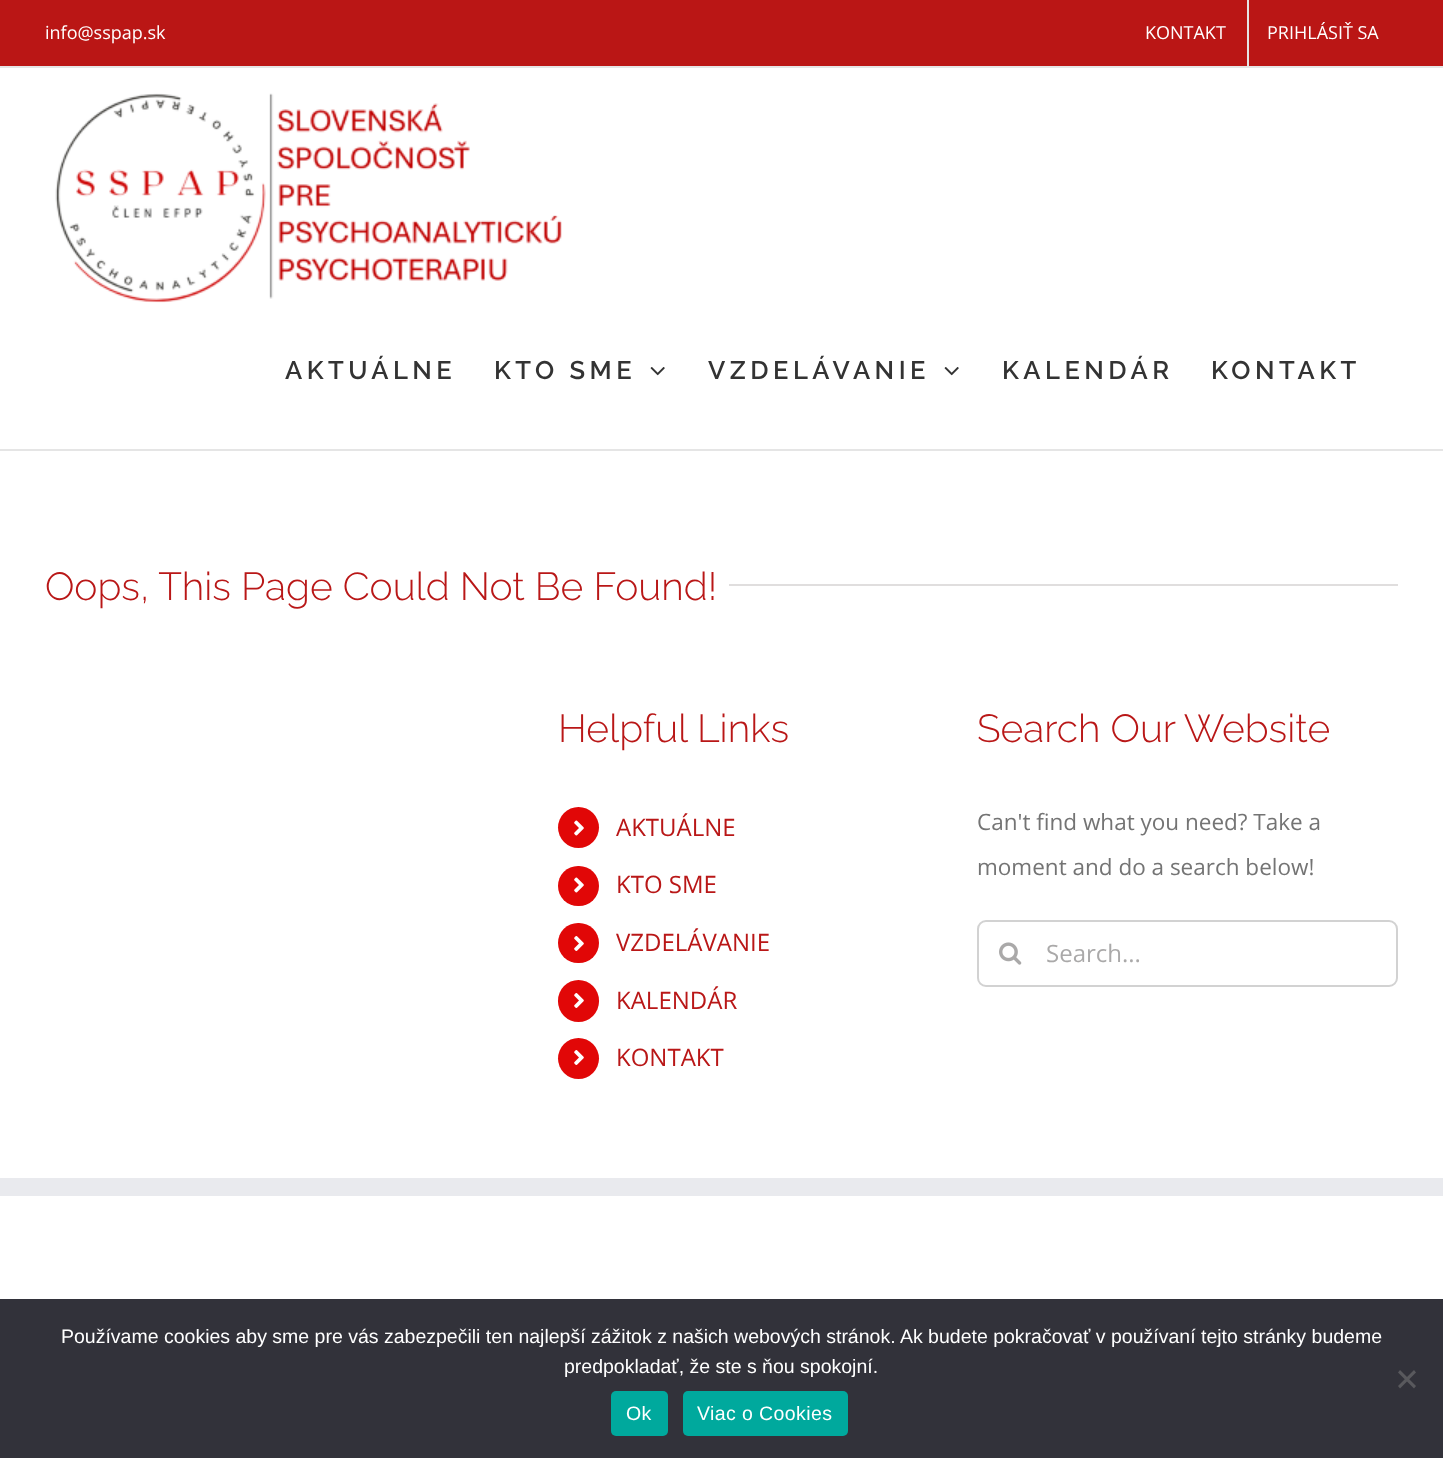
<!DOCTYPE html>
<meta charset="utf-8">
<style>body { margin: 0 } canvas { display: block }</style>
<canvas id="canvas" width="1443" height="1458"></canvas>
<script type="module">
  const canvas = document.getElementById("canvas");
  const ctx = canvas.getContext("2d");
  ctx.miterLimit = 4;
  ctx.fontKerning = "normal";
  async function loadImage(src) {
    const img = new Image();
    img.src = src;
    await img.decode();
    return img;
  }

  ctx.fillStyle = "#ffffff";
  ctx.fillRect(0, 0, 1443, 1458);
  ctx.fillStyle = "#ba1615";
  ctx.fillRect(0, 0, 1443, 66);
  ctx.fillStyle = "#e5e5e5";
  ctx.fillRect(0, 66, 1443, 2);
  ctx.font = "18px Open Sans";
  ctx.fillStyle = "#ffffff";
  ctx.fillText("info@sspap.sk", 45, 39);
  ctx.fillText("KONTAKT", 1145, 39);
  ctx.fillStyle = "#e5e5e5";
  ctx.fillRect(1247, 0, 2, 66);
  ctx.fillStyle = "#ffffff";
  ctx.fillText("PRIHLÁSIŤ SA", 1267, 39);
  ctx.fillStyle = "#e5e5e5";
  ctx.fillRect(0, 449, 1443, 2);
  ctx.drawImage(await loadImage("img1.png"), 55, 93, 507, 210);
  ctx.letterSpacing = "4.5px";
  ctx.font = "600 25.5px Raleway";
  ctx.fillStyle = "#333333";
  ctx.fillText("AKTUÁLNE", 285, 379);
  ctx.fillText("KTO SME", 494, 379);
  ctx.drawImage(await loadImage("img2.png"), 650, 367, 15, 9);
  ctx.fillText("VZDELÁVANIE", 708, 379);
  ctx.drawImage(await loadImage("img2.png"), 944, 367, 15, 9);
  ctx.fillText("KALENDÁR", 1002, 379);
  ctx.fillText("KONTAKT", 1211, 379);
  ctx.letterSpacing = "0px";
  ctx.font = "300 39px Raleway";
  ctx.fillStyle = "#b91717";
  ctx.fillText("Oops, This Page Could Not Be Found!", 45, 600);
  ctx.fillStyle = "#e0dede";
  ctx.fillRect(729, 584, 669, 2);
  ctx.fillStyle = "#b91717";
  ctx.fillText("Helpful Links", 558, 742);
  ctx.fillStyle = "#e10707";
  ctx.beginPath();
  ctx.arc(578.5, 827.5, 20.5, 0, Math.PI * 2);
  ctx.fill();
  ctx.drawImage(await loadImage("img3.png"), 574, 820, 10, 16);
  ctx.font = "24px Open Sans";
  ctx.fillStyle = "#b91717";
  ctx.fillText("AKTUÁLNE", 616, 836);
  ctx.fillStyle = "#e10707";
  ctx.beginPath();
  ctx.roundRect(558, 866, 41, 40, 20);
  ctx.fill();
  ctx.drawImage(await loadImage("img3.png"), 574, 877, 10, 16);
  ctx.fillStyle = "#b91717";
  ctx.fillText("KTO SME", 616, 893);
  ctx.fillStyle = "#e10707";
  ctx.beginPath();
  ctx.roundRect(558, 923, 41, 40, 20);
  ctx.fill();
  ctx.drawImage(await loadImage("img4.png"), 574, 936, 10, 15);
  ctx.fillStyle = "#b91717";
  ctx.fillText("VZDELÁVANIE", 616, 951);
  ctx.fillStyle = "#e10707";
  ctx.beginPath();
  ctx.roundRect(558, 980, 41, 42, 20.5);
  ctx.fill();
  ctx.drawImage(await loadImage("img4.png"), 574, 993, 10, 15);
  ctx.fillStyle = "#b91717";
  ctx.fillText("KALENDÁR", 616, 1009);
  ctx.fillStyle = "#e10707";
  ctx.beginPath();
  ctx.arc(578.5, 1058.5, 20.5, 0, Math.PI * 2);
  ctx.fill();
  ctx.drawImage(await loadImage("img4.png"), 574, 1050, 10, 15);
  ctx.fillStyle = "#b91717";
  ctx.fillText("KONTAKT", 616, 1066);
  ctx.font = "300 39px Raleway";
  ctx.fillText("Search Our Website", 977, 742);
  ctx.font = "22.5px Open Sans";
  ctx.fillStyle = "#747474";
  ctx.fillText("Can't find what you need? Take a", 977, 830);
  ctx.fillText("moment and do a search below!", 977, 875);
  ctx.beginPath();
  ctx.roundRect(978, 921, 419, 65, 8);
  ctx.strokeStyle = "#d2d2d2";
  ctx.lineWidth = 2;
  ctx.stroke();
  ctx.drawImage(await loadImage("img5.png"), 999, 942, 23, 23);
  ctx.font = "24px Open Sans";
  ctx.fillStyle = "#aaa9a9";
  ctx.fillText("Search...", 1046, 962);
  ctx.fillStyle = "#e9eaee";
  ctx.fillRect(0, 1178, 1443, 18);
  ctx.fillStyle = "#32323a";
  ctx.fillRect(0, 1299, 1443, 159);
  ctx.font = "19.5px Liberation Sans";
  ctx.fillStyle = "#ffffff";
  ctx.fillText("Používame cookies aby sme pre vás zabezpečili ten najlepší zážitok z našich webových stránok. Ak budete pokračovať v používaní tejto stránky budeme", 61, 1343);
  ctx.fillText("predpokladať, že ste s ňou spokojní.", 564, 1373);
  ctx.fillStyle = "#59595d";
  ctx.beginPath();
  ctx.moveTo(1414, 1370);
  ctx.lineTo(1416, 1372.5);
  ctx.lineTo(1400, 1388.5);
  ctx.lineTo(1398, 1386);
  ctx.closePath();
  ctx.fill();
  ctx.beginPath();
  ctx.moveTo(1398, 1372.5);
  ctx.lineTo(1400, 1370);
  ctx.lineTo(1416, 1386);
  ctx.lineTo(1414, 1388.5);
  ctx.closePath();
  ctx.fill();
  ctx.fillStyle = "#00a99d";
  ctx.beginPath();
  ctx.roundRect(611, 1391, 57, 45, 5);
  ctx.fill();
  ctx.letterSpacing = "0.4px";
  ctx.fillStyle = "#ffffff";
  ctx.fillText("Ok", 626, 1420);
  ctx.fillStyle = "#00a99d";
  ctx.beginPath();
  ctx.roundRect(683, 1391, 165, 45, 5);
  ctx.fill();
  ctx.fillStyle = "#ffffff";
  ctx.fillText("Viac o Cookies", 697, 1420);
</script>
